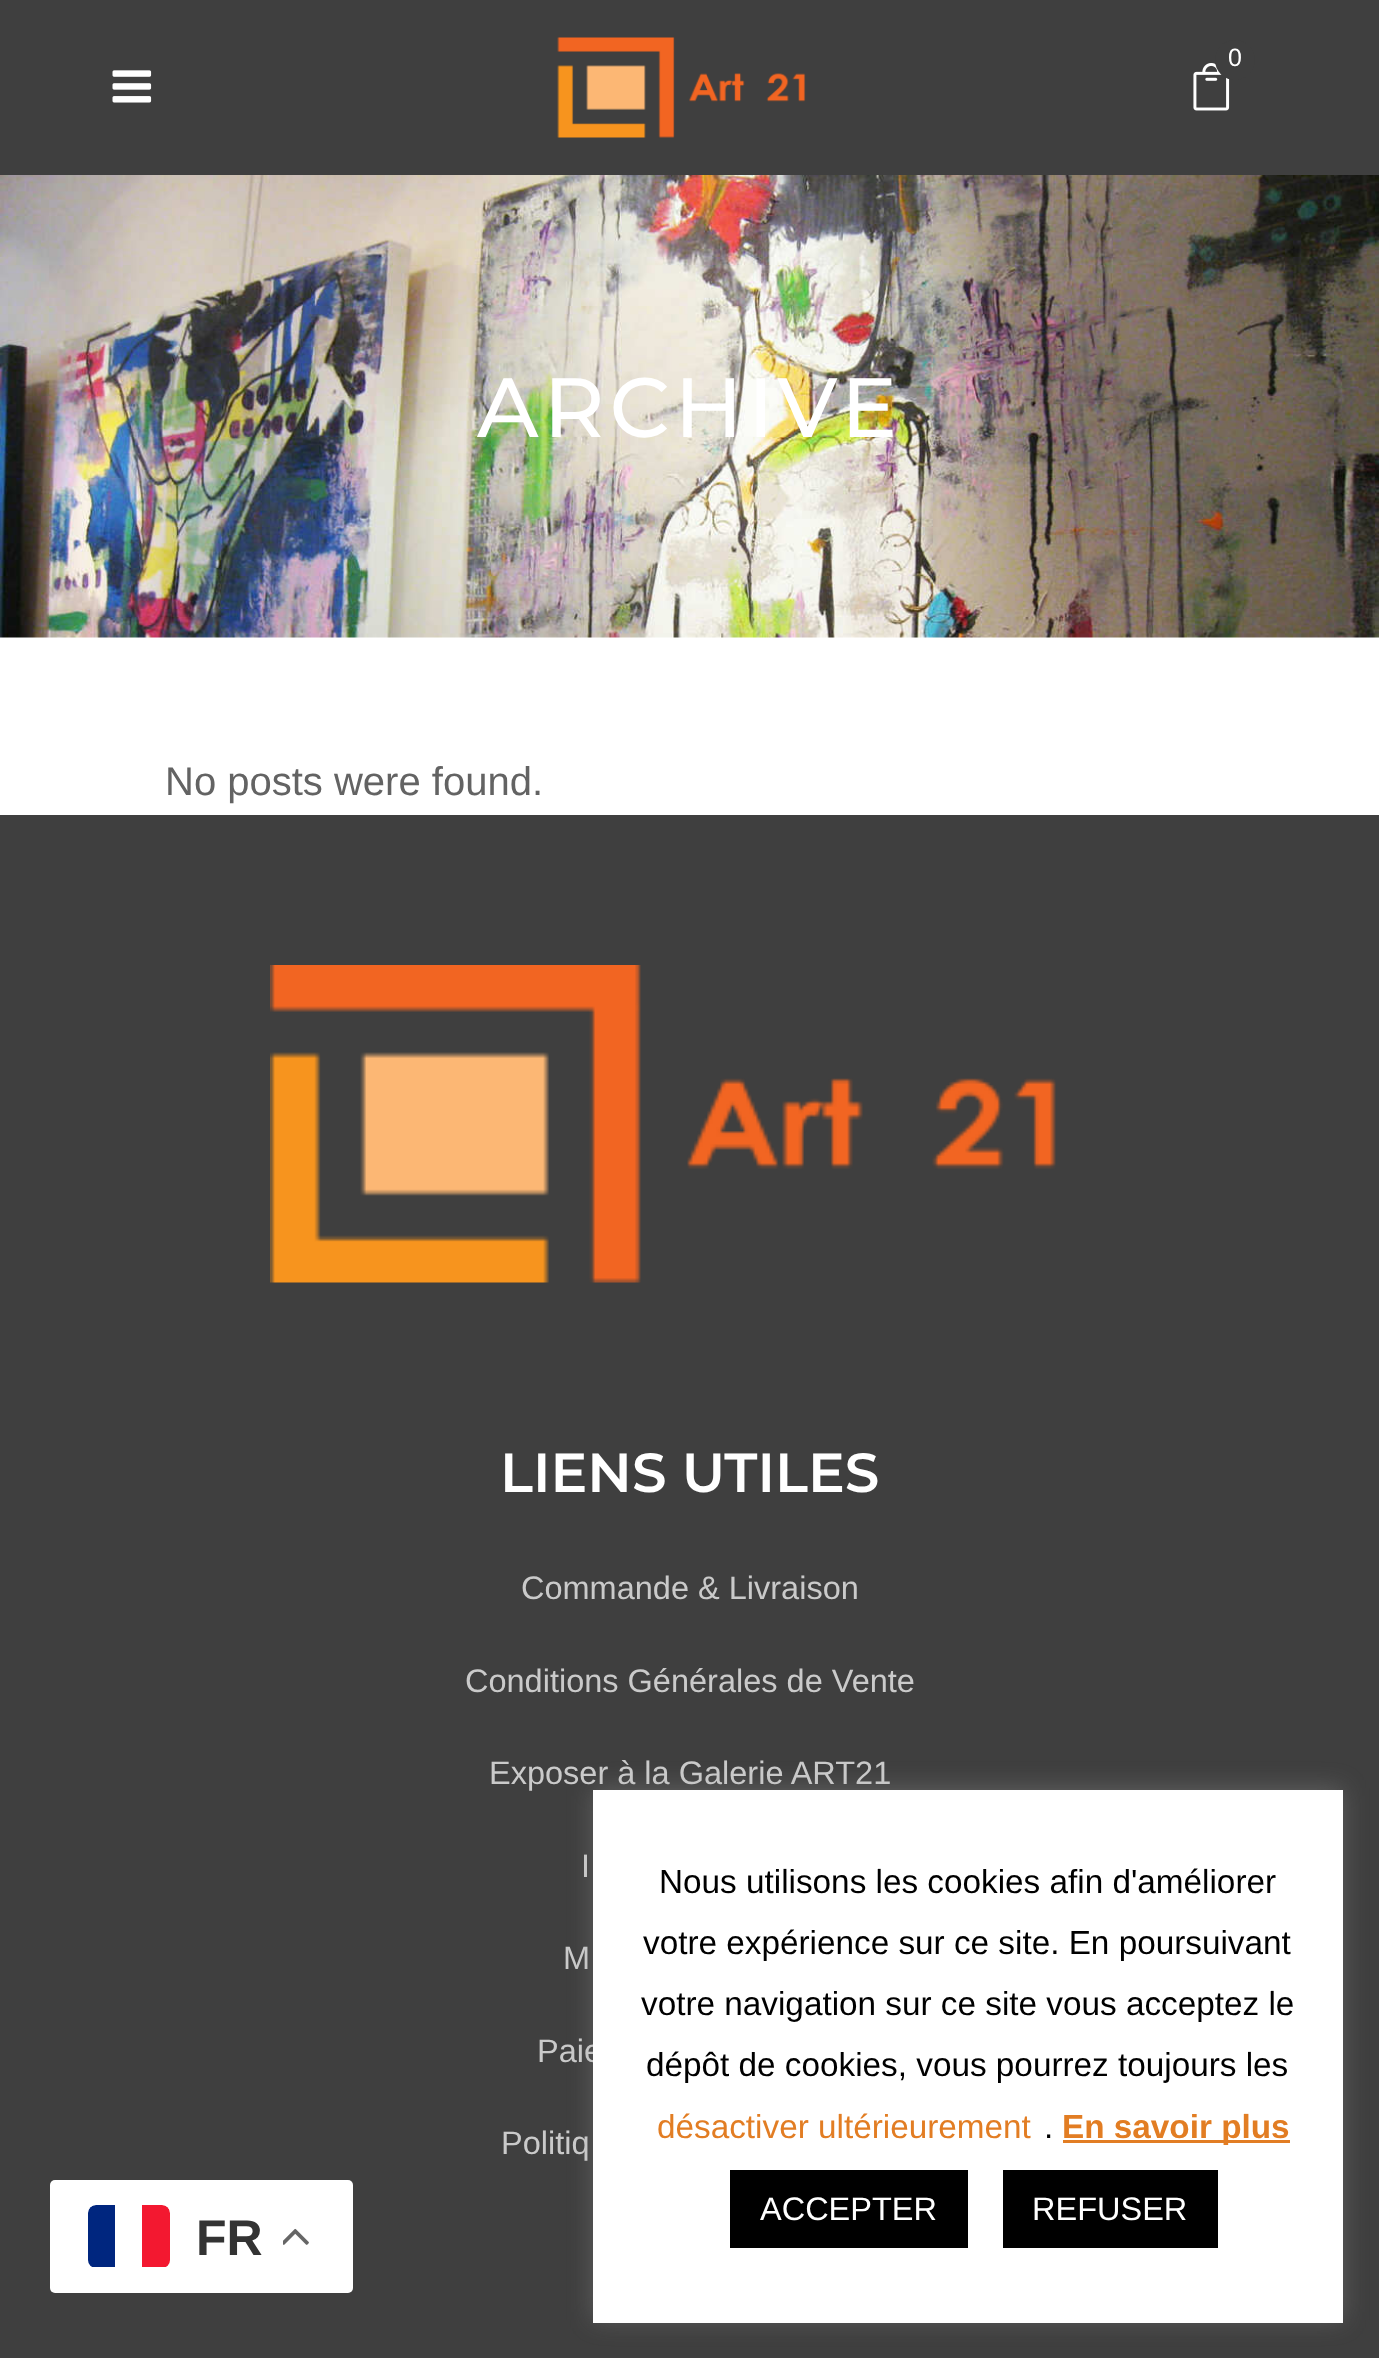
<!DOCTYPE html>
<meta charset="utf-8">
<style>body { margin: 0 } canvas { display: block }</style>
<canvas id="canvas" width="1379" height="2358"></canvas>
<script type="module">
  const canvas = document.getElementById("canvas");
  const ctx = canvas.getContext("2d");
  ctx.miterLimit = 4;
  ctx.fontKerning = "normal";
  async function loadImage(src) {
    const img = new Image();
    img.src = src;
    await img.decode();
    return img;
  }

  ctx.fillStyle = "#ffffff";
  ctx.fillRect(0, 0, 1379, 2358);
  ctx.fillStyle = "#3f3f3f";
  ctx.fillRect(0, 0, 1379, 175);
  ctx.drawImage(await loadImage("img1.png"), 112, 70, 40, 33);
  ctx.drawImage(await loadImage("img2.png"), 557, 37, 249, 101);
  ctx.drawImage(await loadImage("img3.png"), 1193, 63, 37, 48);
  ctx.beginPath();
  ctx.arc(1235, 60, 20, 0, Math.PI * 2);
  ctx.fill();
  ctx.font = "25px Liberation Sans";
  ctx.fillStyle = "#ffffff";
  ctx.fillText("0", 1228, 66);
  ctx.drawImage(await loadImage("img4.png"), 0, 175, 1379, 463);
  ctx.letterSpacing = "5px";
  ctx.font = "500 84px Montserrat";
  ctx.fillText("ARCHIVE", 477, 437);
  ctx.letterSpacing = "0px";
  ctx.font = "40px Liberation Sans";
  ctx.fillStyle = "#636363";
  ctx.fillText("No posts were found.", 165, 795);
  ctx.fillStyle = "#3f3f3f";
  ctx.fillRect(0, 815, 1379, 1543);
  ctx.drawImage(await loadImage("img5.png"), 270, 965, 786, 318);
  ctx.font = "600 55px Montserrat";
  ctx.fillStyle = "#ffffff";
  ctx.fillText("LIENS UTILES", 500, 1492);
  ctx.font = "32.5px Liberation Sans";
  ctx.fillStyle = "#cacaca";
  ctx.fillText("Commande & Livraison", 521, 1599);
  ctx.fillText("Conditions Générales de Vente", 465, 1692);
  ctx.fillText("Exposer à la Galerie ART21", 489, 1784);
  ctx.fillText("I", 581, 1877);
  ctx.fillText("M", 563, 1969);
  ctx.fillText("Paie", 537, 2062);
  ctx.fillText("Politiq", 501, 2154);
  ctx.fillStyle = "rgba(172, 171, 171, 0.3)";
  ctx.filter = "blur(12.5px)";
  ctx.beginPath();
  ctx.rect(593, 1788, 750, 532);
  ctx.fill();
  ctx.filter = "none";
  ctx.fillStyle = "#ffffff";
  ctx.fillRect(593, 1790, 750, 533);
  ctx.font = "33.3px Liberation Sans";
  ctx.fillStyle = "#000000";
  ctx.fillText("Nous utilisons les cookies afin d'améliorer", 659, 1893);
  ctx.fillText("votre expérience sur ce site. En poursuivant", 643, 1954);
  ctx.fillText("votre navigation sur ce site vous acceptez le", 641, 2015);
  ctx.fillText("dépôt de cookies, vous pourrez toujours les", 646, 2076);
  ctx.fillStyle = "#e27d23";
  ctx.fillText("désactiver ultérieurement", 657, 2138);
  ctx.fillStyle = "#000000";
  ctx.fillText(".", 1044, 2138);
  ctx.fillStyle = "#e27d23";
  ctx.fillRect(1063, 2140, 227, 3);
  ctx.font = "bold 33.3px Liberation Sans";
  ctx.fillText("En savoir plus", 1062, 2138);
  ctx.fillStyle = "#000000";
  ctx.fillRect(730, 2170, 238, 78);
  ctx.font = "32.5px Liberation Sans";
  ctx.fillStyle = "#ffffff";
  ctx.fillText("ACCEPTER", 760, 2220);
  ctx.fillStyle = "#000000";
  ctx.fillRect(1003, 2170, 215, 78);
  ctx.fillStyle = "#ffffff";
  ctx.fillText("REFUSER", 1032, 2220);
  ctx.beginPath();
  ctx.roundRect(50, 2180, 303, 113, 5);
  ctx.fill();
  ctx.save();
  ctx.beginPath();
  ctx.roundRect(88, 2205, 82, 63, 8);
  ctx.clip();
  ctx.fillStyle = "#00267f";
  ctx.beginPath();
  ctx.roundRect(88, 2205, 27, 62, [8, 0, 0, 0]);
  ctx.fill();
  ctx.fillStyle = "#f31830";
  ctx.beginPath();
  ctx.roundRect(142, 2205, 28, 62, [0, 8, 0, 0]);
  ctx.fill();
  ctx.restore();
  ctx.font = "bold 50px Liberation Sans";
  ctx.fillStyle = "#333333";
  ctx.fillText("FR", 196, 2255);
  ctx.drawImage(await loadImage("img6.png"), 283, 2228, 26, 17);
</script>
